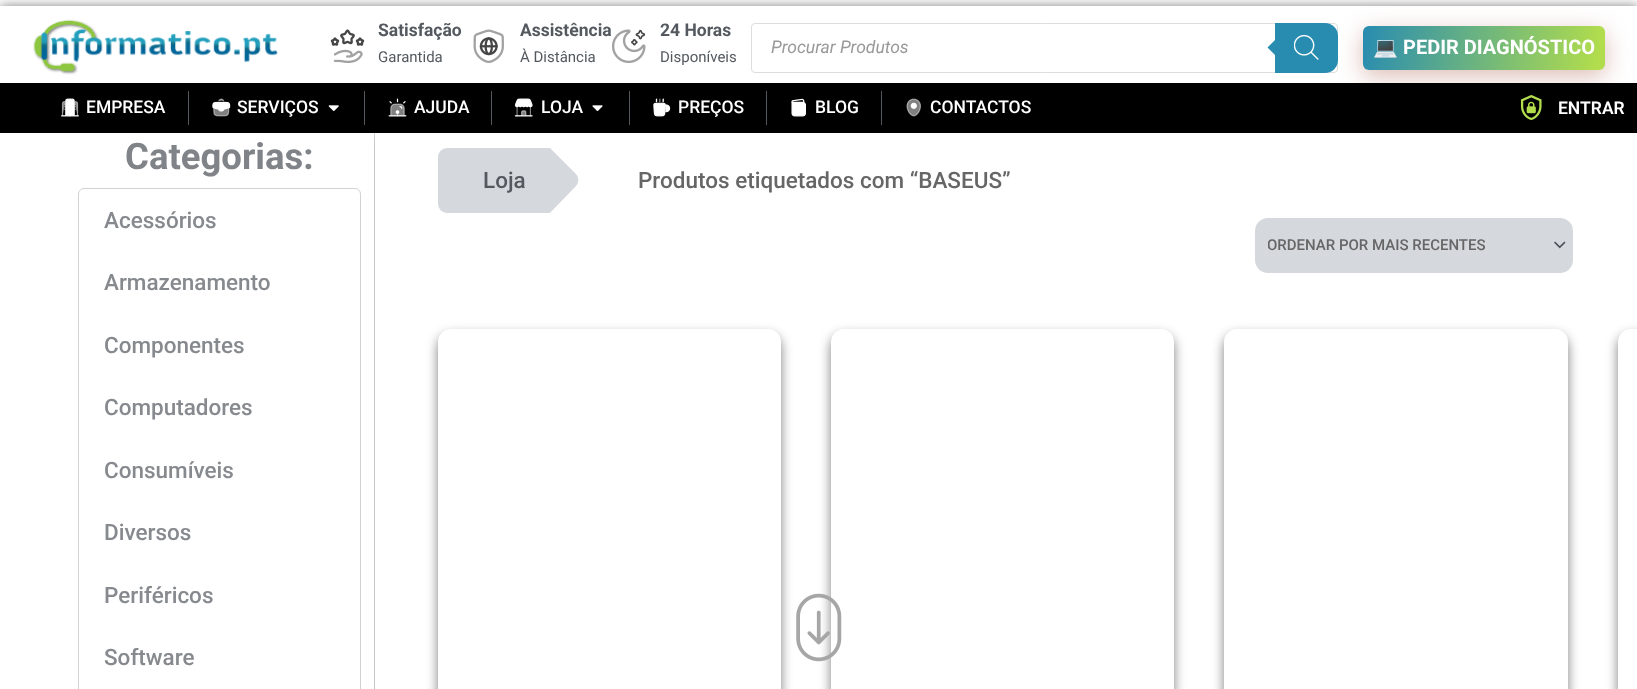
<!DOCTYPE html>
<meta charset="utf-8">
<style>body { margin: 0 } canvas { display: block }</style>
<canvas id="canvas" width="1637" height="689"></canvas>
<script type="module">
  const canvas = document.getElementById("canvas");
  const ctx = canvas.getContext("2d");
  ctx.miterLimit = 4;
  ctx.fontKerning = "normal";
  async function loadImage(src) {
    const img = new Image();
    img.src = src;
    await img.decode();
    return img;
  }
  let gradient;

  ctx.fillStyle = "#ffffff";
  ctx.fillRect(0, 0, 1637, 689);
  ctx.fillStyle = "rgba(0, 0, 0, 0.5)";
  ctx.filter = "blur(6px)";
  ctx.beginPath();
  ctx.rect(0, 6, 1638, 82);
  ctx.fill();
  ctx.filter = "none";
  ctx.fillStyle = "#ffffff";
  ctx.fillRect(0, 6, 1637, 77);
  ctx.drawImage(await loadImage("img1.png"), 33, 19, 245, 56);
  ctx.drawImage(await loadImage("img2.png"), 330, 29, 35, 34);
  ctx.font = "bold 17.5px Roboto";
  ctx.fillStyle = "#54595f";
  ctx.fillText("Satisfação", 378, 36);
  ctx.font = "15px Roboto";
  ctx.fillText("Garantida", 378, 62);
  ctx.drawImage(await loadImage("img3.png"), 473, 29, 31, 34);
  ctx.font = "bold 17.5px Roboto";
  ctx.fillText("Assistência", 520, 36);
  ctx.font = "15px Roboto";
  ctx.fillText("À Distância", 520, 62);
  ctx.drawImage(await loadImage("img4.png"), 612, 29, 34, 34);
  ctx.font = "bold 17.5px Roboto";
  ctx.fillText("24 Horas", 660, 36);
  ctx.font = "15px Roboto";
  ctx.fillText("Disponíveis", 660, 62);
  ctx.beginPath();
  ctx.roundRect(751.5, 23.5, 586, 49, 3.5);
  ctx.strokeStyle = "#dddddd";
  ctx.stroke();
  ctx.font = "italic 17.5px Roboto";
  ctx.fillStyle = "#999999";
  ctx.fillText("Procurar Produtos", 771, 53);
  ctx.fillStyle = "#288cb1";
  ctx.beginPath();
  ctx.roundRect(1275, 23, 63, 50, [0, 13, 13, 0]);
  ctx.fill();
  ctx.beginPath();
  ctx.moveTo(1277.5, 37.5);
  ctx.lineTo(1277.5, 57.5);
  ctx.lineTo(1267.5, 47.5);
  ctx.closePath();
  ctx.fill();
  ctx.drawImage(await loadImage("img5.png"), 1294, 35, 25, 25);
  ctx.fillStyle = "rgba(172, 97, 78, 0.43)";
  ctx.filter = "blur(12.5px)";
  ctx.beginPath();
  ctx.roundRect(1363, 33, 242, 43, 6);
  ctx.fill();
  ctx.filter = "none";
  gradient = ctx.createLinearGradient(1370, -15, 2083, 111);
  gradient.addColorStop(0, "#288cb1");
  gradient.addColorStop(0.33, "#b2dd4c");
  gradient.addColorStop(0.67, "#288cb1");
  gradient.addColorStop(1, "#b2dd4c");
  ctx.fillStyle = gradient;
  ctx.beginPath();
  ctx.roundRect(1363, 26, 242, 44, 6);
  ctx.fill();
  ctx.font = "bold 20px Noto Color Emoji";
  ctx.fillStyle = "#ffffff";
  ctx.fillText("💻", 1373, 54);
  ctx.font = "bold 20px Roboto";
  ctx.fillText("PEDIR DIAGNÓSTICO", 1403, 54);
  ctx.fillStyle = "#c5c7c9";
  ctx.fillRect(374, 126, 1, 563);
  ctx.fillStyle = "#d5d8dd";
  ctx.beginPath();
  ctx.roundRect(438, 148, 110, 65, [9, 0, 0, 9]);
  ctx.fill();
  ctx.save();
  ctx.beginPath();
  ctx.rect(438, 148, 1135, 65);
  ctx.clip();
  ctx.beginPath();
  ctx.moveTo(549, 147);
  ctx.lineTo(576, 174);
  ctx.bezierCurveTo(579, 177, 579, 183, 576, 186);
  ctx.lineTo(549, 214);
  ctx.bezierCurveTo(545, 217, 540, 217, 536, 214);
  ctx.lineTo(509, 186);
  ctx.bezierCurveTo(505, 183, 505, 177, 509, 174);
  ctx.lineTo(536, 147);
  ctx.bezierCurveTo(540, 143, 545, 143, 549, 147);
  ctx.closePath();
  ctx.fill();
  ctx.restore();
  ctx.fillStyle = "rgba(255, 255, 255, 0.62)";
  ctx.filter = "blur(7.5px)";
  ctx.beginPath();
  ctx.rect(10, 103, 1618, 30);
  ctx.fill();
  ctx.filter = "none";
  ctx.fillStyle = "#000000";
  ctx.fillRect(0, 83, 1637, 50);
  ctx.drawImage(await loadImage("img6.png"), 61, 98, 18, 19);
  ctx.font = "500 17.5px Roboto";
  ctx.fillStyle = "#ffffff";
  ctx.fillText("EMPRESA", 86, 113);
  ctx.fillStyle = "#54595f";
  ctx.fillRect(188, 91, 1, 34);
  ctx.drawImage(await loadImage("img7.png"), 212, 98, 19, 19);
  ctx.fillStyle = "#ffffff";
  ctx.fillText("SERVIÇOS", 237, 113);
  ctx.drawImage(await loadImage("img8.png"), 328, 105, 11, 6);
  ctx.fillStyle = "#54595f";
  ctx.fillRect(364, 91, 1, 34);
  ctx.drawImage(await loadImage("img9.png"), 388, 98, 19, 19);
  ctx.fillStyle = "#ffffff";
  ctx.fillText("AJUDA", 414, 113);
  ctx.fillStyle = "#54595f";
  ctx.fillRect(491, 91, 1, 34);
  ctx.drawImage(await loadImage("img10.png"), 514, 98, 19, 19);
  ctx.fillStyle = "#ffffff";
  ctx.fillText("LOJA", 541, 113);
  ctx.drawImage(await loadImage("img11.png"), 592, 105, 11, 6);
  ctx.fillStyle = "#54595f";
  ctx.fillRect(629, 91, 1, 34);
  ctx.drawImage(await loadImage("img12.png"), 653, 98, 18, 19);
  ctx.fillStyle = "#ffffff";
  ctx.fillText("PREÇOS", 678, 113);
  ctx.fillStyle = "#54595f";
  ctx.fillRect(766, 91, 1, 34);
  ctx.drawImage(await loadImage("img13.png"), 791, 98, 15, 19);
  ctx.fillStyle = "#ffffff";
  ctx.fillText("BLOG", 815, 113);
  ctx.fillStyle = "#54595f";
  ctx.fillRect(881, 91, 1, 34);
  ctx.drawImage(await loadImage("img14.png"), 906, 98, 15, 19);
  ctx.fillStyle = "#ffffff";
  ctx.fillText("CONTACTOS", 930, 113);
  ctx.drawImage(await loadImage("img15.png"), 1520, 94, 22, 27);
  ctx.font = "600 17.5px Roboto";
  ctx.fillText("ENTRAR", 1558, 114);
  ctx.font = "bold 36.5px Roboto";
  ctx.fillStyle = "#808489";
  ctx.fillText("Categorias:", 125, 169);
  ctx.beginPath();
  ctx.roundRect(78.5, 188.5, 282, 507, 5.5);
  ctx.strokeStyle = "#d1d2d4";
  ctx.stroke();
  ctx.font = "500 22.5px Roboto";
  ctx.fillStyle = "#86898d";
  ctx.fillText("Acessórios", 104, 228);
  ctx.fillText("Armazenamento", 104, 290);
  ctx.fillText("Componentes", 104, 353);
  ctx.fillText("Computadores", 104, 415);
  ctx.fillText("Consumíveis", 104, 478);
  ctx.fillText("Diversos", 104, 540);
  ctx.fillText("Periféricos", 104, 603);
  ctx.fillText("Software", 104, 665);
  ctx.fillStyle = "#54595f";
  ctx.fillText("Loja", 483, 188);
  ctx.fillStyle = "#666666";
  ctx.fillText("Produtos etiquetados com “BASEUS”", 638, 188);
  ctx.fillStyle = "#d5d8dd";
  ctx.beginPath();
  ctx.roundRect(1255, 218, 318, 55, 13);
  ctx.fill();
  ctx.drawImage(await loadImage("img16.png"), 1554, 241, 12, 8);
  ctx.save();
  ctx.beginPath();
  ctx.rect(1268, 236, 305, 18);
  ctx.clip();
  ctx.font = "500 15px Roboto";
  ctx.fillStyle = "#666666";
  ctx.fillText("ORDENAR POR MAIS RECENTES", 1267, 250);
  ctx.restore();
  ctx.fillStyle = "rgba(0, 0, 0, 0.5)";
  ctx.filter = "blur(6px)";
  ctx.beginPath();
  ctx.roundRect(438, 335, 343, 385, 13);
  ctx.fill();
  ctx.filter = "none";
  ctx.fillStyle = "#ffffff";
  ctx.beginPath();
  ctx.roundRect(438, 329, 343, 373, 13);
  ctx.fill();
  ctx.fillStyle = "rgba(0, 0, 0, 0.5)";
  ctx.filter = "blur(6px)";
  ctx.beginPath();
  ctx.roundRect(831, 335, 343, 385, 13);
  ctx.fill();
  ctx.filter = "none";
  ctx.fillStyle = "#ffffff";
  ctx.beginPath();
  ctx.roundRect(831, 329, 343, 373, 13);
  ctx.fill();
  ctx.fillStyle = "rgba(0, 0, 0, 0.5)";
  ctx.filter = "blur(6px)";
  ctx.beginPath();
  ctx.roundRect(1224, 335, 344, 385, 13);
  ctx.fill();
  ctx.filter = "none";
  ctx.fillStyle = "#ffffff";
  ctx.beginPath();
  ctx.roundRect(1224, 329, 344, 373, 13);
  ctx.fill();
  ctx.save();
  ctx.beginPath();
  ctx.moveTo(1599, 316);
  ctx.lineTo(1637, 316);
  ctx.lineTo(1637, 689);
  ctx.lineTo(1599, 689);
  ctx.closePath();
  ctx.moveTo(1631, 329);
  ctx.lineTo(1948, 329);
  ctx.bezierCurveTo(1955, 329, 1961, 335, 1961, 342);
  ctx.lineTo(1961, 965);
  ctx.bezierCurveTo(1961, 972, 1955, 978, 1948, 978);
  ctx.lineTo(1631, 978);
  ctx.bezierCurveTo(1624, 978, 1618, 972, 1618, 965);
  ctx.lineTo(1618, 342);
  ctx.bezierCurveTo(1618, 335, 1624, 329, 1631, 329);
  ctx.closePath();
  ctx.clip("evenodd");
  ctx.fillStyle = "rgba(0, 0, 0, 0.5)";
  ctx.filter = "blur(6px)";
  ctx.beginPath();
  ctx.roundRect(1618, 335, 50, 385, 13);
  ctx.fill();
  ctx.filter = "none";
  ctx.restore();
  ctx.drawImage(await loadImage("img17.png"), 796, 593, 46, 69);
</script>
